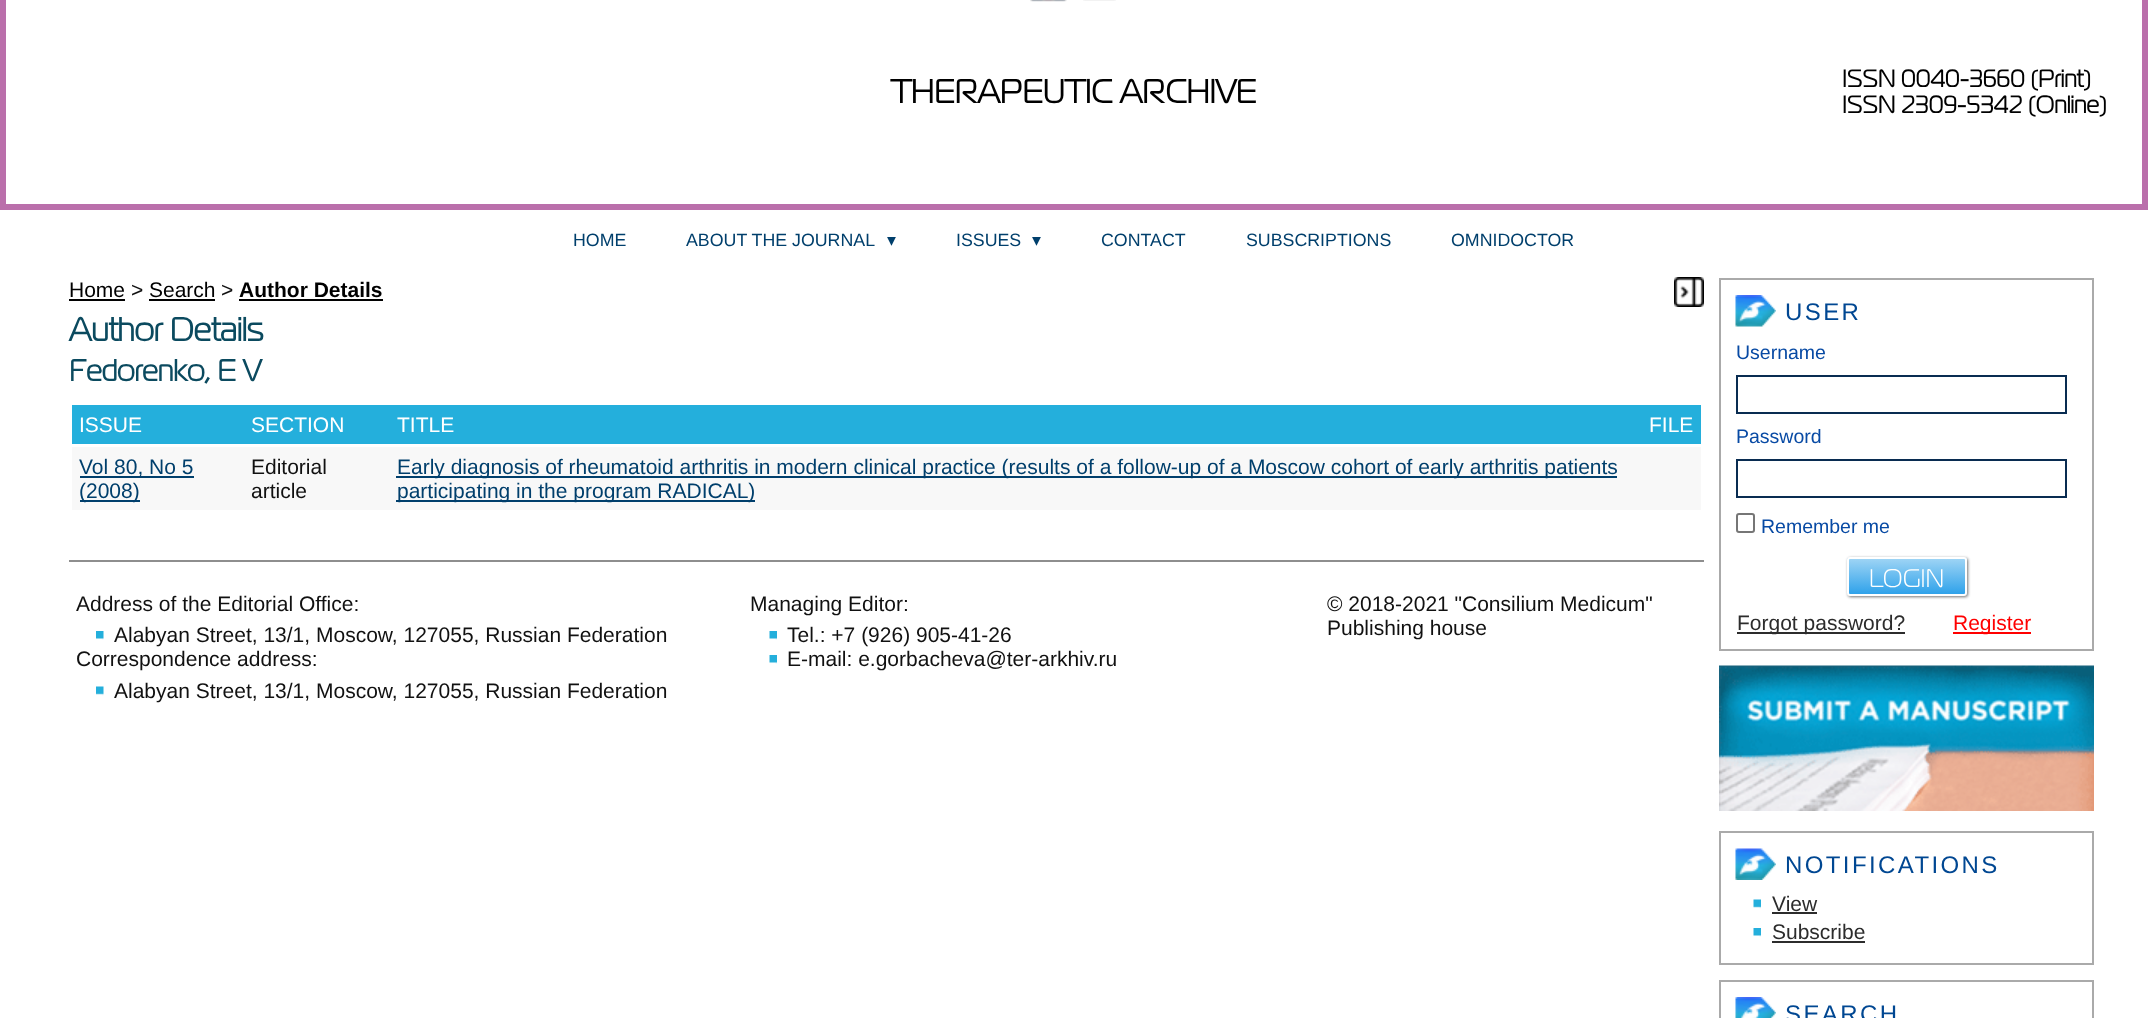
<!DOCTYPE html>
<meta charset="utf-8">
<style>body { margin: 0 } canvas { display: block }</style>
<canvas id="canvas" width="2148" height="1018"></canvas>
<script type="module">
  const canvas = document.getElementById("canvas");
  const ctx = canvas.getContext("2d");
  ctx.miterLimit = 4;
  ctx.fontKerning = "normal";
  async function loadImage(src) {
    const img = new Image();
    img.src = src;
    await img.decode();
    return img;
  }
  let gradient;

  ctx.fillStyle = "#ffffff";
  ctx.fillRect(0, 0, 2148, 1018);
  ctx.strokeStyle = "#ba6fab";
  ctx.lineWidth = 6;
  ctx.strokeRect(3, -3, 2142, 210);
  ctx.drawImage(await loadImage("img1.png"), 1030, 0, 37, 2);
  ctx.drawImage(await loadImage("img2.png"), 1083, 0, 33, 1);
  ctx.font = "bold 33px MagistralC";
  ctx.fillStyle = "#000000";
  ctx.fillText("THERAPEUTIC ARCHIVE", 891, 103);
  ctx.font = "bold 24px MagistralC";
  ctx.fillText("ISSN 0040-3660 (Print)", 1842, 87);
  ctx.fillText("ISSN 2309-5342 (Online)", 1842, 113);
  ctx.font = "17.8px Liberation Sans";
  ctx.fillStyle = "#003f6c";
  ctx.fillText("HOME", 573, 246);
  ctx.fillText("ABOUT THE JOURNAL", 686, 246);
  ctx.font = "17.8px DejaVu Sans";
  ctx.fillText("▾", 887, 246);
  ctx.font = "17.8px Liberation Sans";
  ctx.fillText("ISSUES", 956, 246);
  ctx.font = "17.8px DejaVu Sans";
  ctx.fillText("▾", 1032, 246);
  ctx.font = "17.8px Liberation Sans";
  ctx.fillText("CONTACT", 1101, 246);
  ctx.fillText("SUBSCRIPTIONS", 1246, 246);
  ctx.fillText("OMNIDOCTOR", 1451, 246);
  ctx.font = "21px Liberation Sans";
  ctx.fillStyle = "#000000";
  ctx.fillText("Home", 69, 297);
  ctx.fillStyle = "#010101";
  ctx.fillRect(69, 299, 56, 2);
  ctx.fillStyle = "#111111";
  ctx.fillText(">", 131, 297);
  ctx.fillStyle = "#000000";
  ctx.fillText("Search", 149, 297);
  ctx.fillStyle = "#010101";
  ctx.fillRect(149, 299, 66, 2);
  ctx.fillStyle = "#111111";
  ctx.fillText(">", 221, 297);
  ctx.font = "bold 21px Liberation Sans";
  ctx.fillStyle = "#000000";
  ctx.fillText("Author Details", 239, 297);
  ctx.fillStyle = "#010101";
  ctx.fillRect(239, 299, 144, 2);
  ctx.drawImage(await loadImage("img3.png"), 1674, 277, 30, 30);
  ctx.font = "bold 33px MagistralC";
  ctx.fillStyle = "#0b4a5f";
  ctx.fillText("Author Details", 69, 341);
  ctx.font = "bold 30px MagistralC";
  ctx.fillText("Fedorenko, E V", 69, 381);
  ctx.fillStyle = "#24afdc";
  ctx.fillRect(72, 405, 1629, 39);
  ctx.font = "21px Liberation Sans";
  ctx.fillStyle = "#ffffff";
  ctx.fillText("ISSUE", 79, 432);
  ctx.fillText("SECTION", 251, 432);
  ctx.fillText("TITLE", 397, 432);
  ctx.fillText("FILE", 1649, 432);
  ctx.fillStyle = "#f8f8f8";
  ctx.fillRect(72, 447, 1629, 63);
  ctx.fillStyle = "#003f6c";
  ctx.fillRect(80, 476, 114, 2);
  ctx.fillText("Vol 80, No 5", 79, 474);
  ctx.fillRect(80, 500, 60, 2);
  ctx.fillText("(2008)", 79, 498);
  ctx.fillStyle = "#111111";
  ctx.fillText("Editorial", 251, 474);
  ctx.fillText("article", 251, 498);
  ctx.fillStyle = "#003f6c";
  ctx.fillRect(396, 476, 1221, 2);
  ctx.fillText("Early diagnosis of rheumatoid arthritis in modern clinical practice (results of a follow-up of a Moscow cohort of early arthritis patients", 397, 474);
  ctx.fillRect(396, 500, 359, 2);
  ctx.fillText("participating in the program RADICAL)", 397, 498);
  ctx.fillStyle = "#8e8e8e";
  ctx.fillRect(69, 560, 1635, 2);
  ctx.fillStyle = "#111111";
  ctx.fillText("Address of the Editorial Office:", 76, 611);
  ctx.drawImage(await loadImage("img4.png"), 96, 631, 8, 9);
  ctx.fillText("Alabyan Street, 13/1, Moscow, 127055, Russian Federation", 114, 642);
  ctx.fillText("Correspondence address:", 76, 666);
  ctx.drawImage(await loadImage("img5.png"), 96, 686, 8, 10);
  ctx.fillText("Alabyan Street, 13/1, Moscow, 127055, Russian Federation", 114, 698);
  ctx.fillText("Managing Editor:", 750, 611);
  ctx.drawImage(await loadImage("img6.png"), 769, 631, 8, 9);
  ctx.fillText("Tel.: +7 (926) 905-41-26", 787, 642);
  ctx.drawImage(await loadImage("img6.png"), 769, 655, 8, 9);
  ctx.fillText("E-mail: e.gorbacheva@ter-arkhiv.ru", 787, 666);
  ctx.fillText("© 2018-2021 \"Consilium Medicum\"", 1327, 611);
  ctx.fillText("Publishing house", 1327, 635);
  ctx.strokeStyle = "#aaaaaa";
  ctx.lineWidth = 2;
  ctx.strokeRect(1720, 279, 373, 371);
  ctx.drawImage(await loadImage("img7.png"), 1735, 295, 41, 32);
  ctx.letterSpacing = "2.4px";
  ctx.font = "24px Liberation Sans";
  ctx.fillStyle = "#004792";
  ctx.fillText("USER", 1785, 320);
  ctx.letterSpacing = "0px";
  ctx.font = "19.5px Liberation Sans";
  ctx.fillStyle = "#084aa4";
  ctx.fillText("Username", 1736, 359);
  ctx.strokeStyle = "#092c51";
  ctx.strokeRect(1737, 376, 329, 37);
  ctx.fillText("Password", 1736, 443);
  ctx.strokeRect(1737, 460, 329, 37);
  ctx.beginPath();
  ctx.roundRect(1737, 514, 17, 18, 2);
  ctx.strokeStyle = "#767676";
  ctx.stroke();
  ctx.fillText("Remember me", 1761, 533);
  ctx.fillStyle = "#737373";
  ctx.filter = "blur(1.5px)";
  ctx.beginPath();
  ctx.roundRect(1848, 558, 120, 39, 3);
  ctx.fill();
  ctx.filter = "none";
  ctx.save();
  ctx.beginPath();
  ctx.roundRect(1847, 557, 120, 39, 3);
  ctx.clip();
  gradient = ctx.createLinearGradient(1907, 558, 1907, 594);
  gradient.addColorStop(0, "#a0d5f5");
  gradient.addColorStop(1, "#2fa2ea");
  ctx.fillStyle = gradient;
  ctx.fillRect(1847, 558, 120, 36);
  ctx.restore();
  ctx.beginPath();
  ctx.roundRect(1848, 558, 118, 37, 2);
  ctx.strokeStyle = "#ffffff";
  ctx.stroke();
  ctx.font = "25.5px MagistralC";
  ctx.fillStyle = "#ffffff";
  ctx.fillText("LOGIN", 1869, 587);
  ctx.fillStyle = "#2c2c2c";
  ctx.fillRect(1737, 632, 168, 2);
  ctx.font = "21px Liberation Sans";
  ctx.fillText("Forgot password?", 1737, 630);
  ctx.fillStyle = "#ff0000";
  ctx.fillRect(1953, 632, 78, 2);
  ctx.fillText("Register", 1953, 630);
  ctx.drawImage(await loadImage("img8.png"), 1719, 665, 375, 146);
  ctx.strokeStyle = "#aaaaaa";
  ctx.strokeRect(1720, 832, 373, 132);
  ctx.drawImage(await loadImage("img9.png"), 1735, 848, 41, 32);
  ctx.letterSpacing = "2.4px";
  ctx.font = "24px Liberation Sans";
  ctx.fillStyle = "#004792";
  ctx.fillText("NOTIFICATIONS", 1785, 873);
  ctx.drawImage(await loadImage("img10.png"), 1753, 899, 8, 10);
  ctx.letterSpacing = "0px";
  ctx.font = "21px Liberation Sans";
  ctx.fillStyle = "#2c2c2c";
  ctx.fillText("View", 1772, 911);
  ctx.fillRect(1772, 912, 45, 2);
  ctx.drawImage(await loadImage("img6.png"), 1753, 928, 8, 9);
  ctx.fillText("Subscribe", 1772, 939);
  ctx.fillRect(1772, 941, 93, 2);
  ctx.strokeRect(1720, 981, 373, 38);
  ctx.drawImage(await loadImage("img11.png"), 1735, 997, 41, 21);
  ctx.letterSpacing = "2.4px";
  ctx.font = "24px Liberation Sans";
  ctx.fillStyle = "#004792";
  ctx.fillText("SEARCH", 1785, 1022);
</script>
